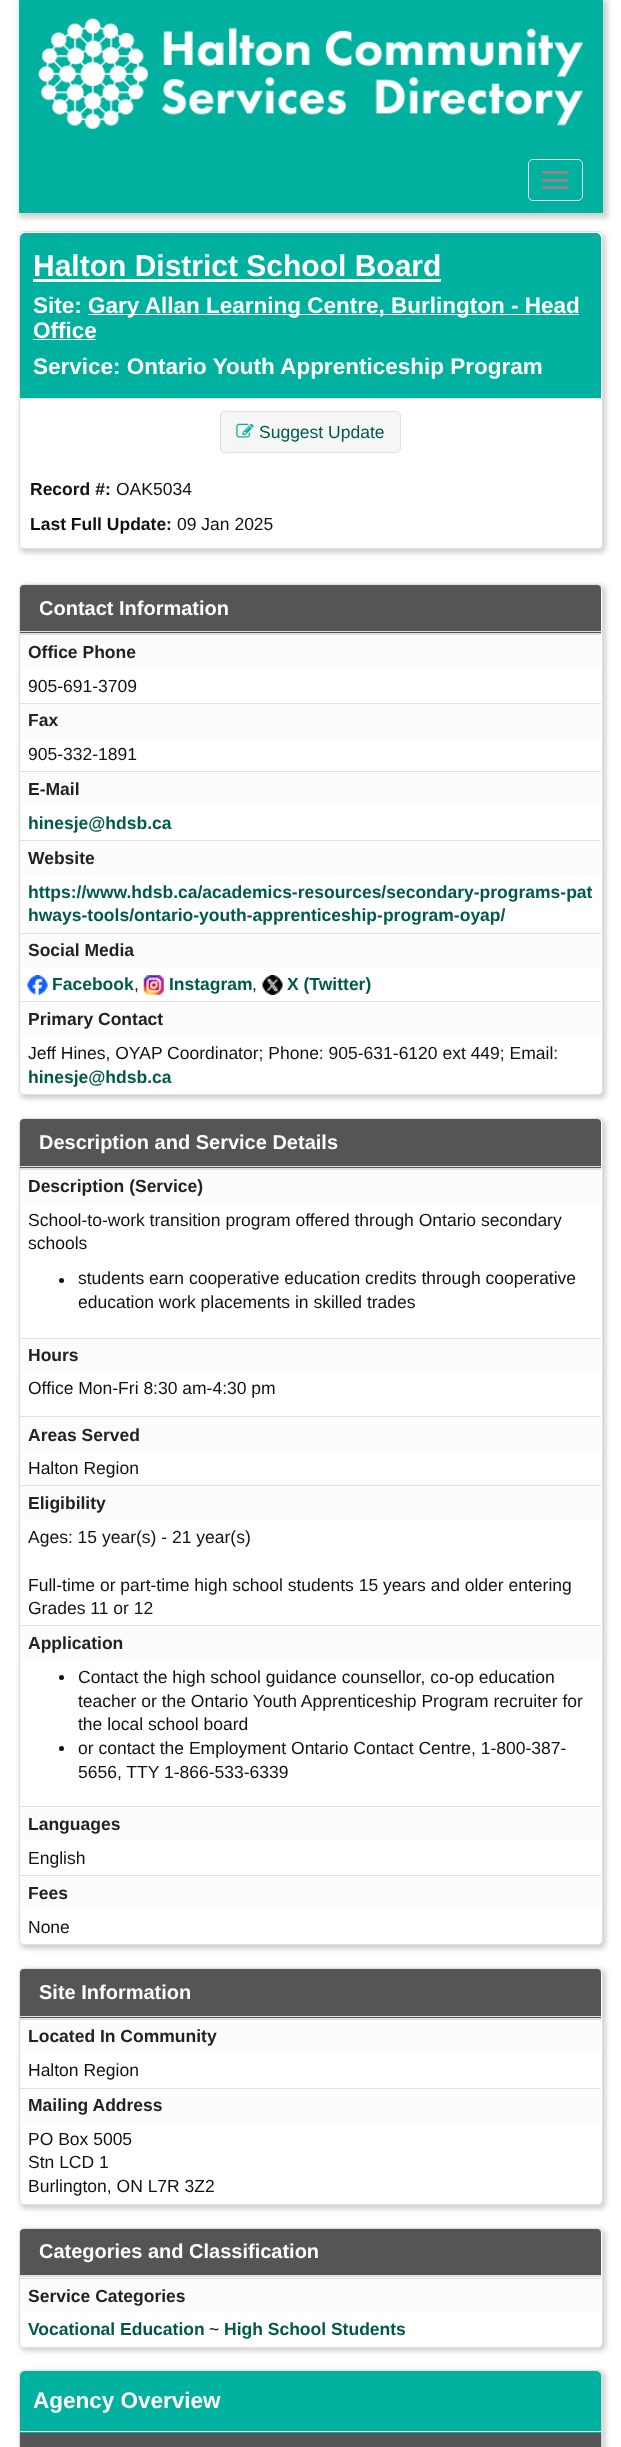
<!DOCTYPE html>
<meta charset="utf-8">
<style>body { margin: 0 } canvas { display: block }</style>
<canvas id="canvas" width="621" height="2447"></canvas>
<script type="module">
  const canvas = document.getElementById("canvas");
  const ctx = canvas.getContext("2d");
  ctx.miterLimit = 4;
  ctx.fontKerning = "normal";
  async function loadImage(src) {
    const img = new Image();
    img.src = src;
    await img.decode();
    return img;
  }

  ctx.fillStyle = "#ffffff";
  ctx.fillRect(0, 0, 621, 2447);
  ctx.fillStyle = "rgba(102, 102, 102, 0.3)";
  ctx.filter = "blur(2.5px)";
  ctx.beginPath();
  ctx.rect(19, 0, 589, 218);
  ctx.fill();
  ctx.filter = "none";
  ctx.fillStyle = "#00b19f";
  ctx.fillRect(19, 0, 584, 213);
  ctx.drawImage(await loadImage("img1.png"), 38, 18, 545, 111);
  ctx.beginPath();
  ctx.roundRect(528.5, 159.5, 54, 41, 4.5);
  ctx.strokeStyle = "#eeeeee";
  ctx.stroke();
  ctx.fillStyle = "#888888";
  ctx.beginPath();
  ctx.roundRect(541, 171, 28, 3, 1.5);
  ctx.fill();
  ctx.beginPath();
  ctx.roundRect(541, 179, 28, 3, 1.5);
  ctx.fill();
  ctx.beginPath();
  ctx.roundRect(541, 186, 28, 3, 1.5);
  ctx.fill();
  ctx.save();
  ctx.beginPath();
  ctx.moveTo(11, 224);
  ctx.lineTo(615, 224);
  ctx.lineTo(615, 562);
  ctx.lineTo(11, 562);
  ctx.closePath();
  ctx.moveTo(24, 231);
  ctx.lineTo(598, 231);
  ctx.bezierCurveTo(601, 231, 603, 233, 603, 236);
  ctx.lineTo(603, 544);
  ctx.bezierCurveTo(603, 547, 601, 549, 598, 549);
  ctx.lineTo(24, 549);
  ctx.bezierCurveTo(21, 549, 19, 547, 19, 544);
  ctx.lineTo(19, 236);
  ctx.bezierCurveTo(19, 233, 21, 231, 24, 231);
  ctx.closePath();
  ctx.clip("evenodd");
  ctx.fillStyle = "rgba(102, 102, 102, 0.3)";
  ctx.filter = "blur(2.5px)";
  ctx.beginPath();
  ctx.roundRect(20, 233, 586, 320, 6);
  ctx.fill();
  ctx.filter = "none";
  ctx.restore();
  ctx.beginPath();
  ctx.roundRect(19.5, 231.5, 583, 317, 4.5);
  ctx.strokeStyle = "#e0e0e0";
  ctx.stroke();
  ctx.fillStyle = "#00b19f";
  ctx.beginPath();
  ctx.roundRect(20, 233, 581, 166, [5, 5, 0, 0]);
  ctx.fill();
  ctx.fillStyle = "#e0e0e0";
  ctx.fillRect(20, 398, 581, 1);
  ctx.font = "bold 30px Liberation Sans";
  ctx.fillStyle = "#ffffff";
  ctx.fillText("Halton District School Board", 33, 276);
  ctx.fillRect(33, 279, 408, 3);
  ctx.font = "bold 22.5px Liberation Sans";
  ctx.fillText("Site:", 33, 313);
  ctx.fillRect(88, 314, 491, 1);
  ctx.fillText("Gary Allan Learning Centre, Burlington - Head", 88, 313);
  ctx.fillText("Office", 33, 338);
  ctx.fillRect(33, 339, 63, 1);
  ctx.fillText("Service: Ontario Youth Apprenticeship Program", 33, 374);
  ctx.fillStyle = "#f6f6f6";
  ctx.beginPath();
  ctx.roundRect(220.5, 411.5, 180, 41, 4.5);
  ctx.fill();
  ctx.stroke();
  ctx.drawImage(await loadImage("img2.png"), 236, 423, 18, 15);
  ctx.font = "17.5px Liberation Sans";
  ctx.fillStyle = "#00594d";
  ctx.fillText("Suggest Update", 259, 438);
  ctx.font = "bold 17.5px Liberation Sans";
  ctx.fillStyle = "#111111";
  ctx.fillText("Record #:", 30, 495);
  ctx.font = "17.5px Liberation Sans";
  ctx.fillText("OAK5034", 116, 495);
  ctx.font = "bold 17.5px Liberation Sans";
  ctx.fillText("Last Full Update:", 30, 530);
  ctx.font = "17.5px Liberation Sans";
  ctx.fillText("09 Jan 2025", 177, 530);
  ctx.fillStyle = "rgba(102, 102, 102, 0.3)";
  ctx.filter = "blur(2.5px)";
  ctx.beginPath();
  ctx.roundRect(20, 585, 586, 514, 6);
  ctx.fill();
  ctx.filter = "none";
  ctx.fillStyle = "#ffffff";
  ctx.beginPath();
  ctx.roundRect(19.5, 584.5, 583, 510, 4.5);
  ctx.fill();
  ctx.stroke();
  ctx.fillStyle = "#555555";
  ctx.beginPath();
  ctx.roundRect(20, 585, 581, 48, [4, 4, 0, 0]);
  ctx.fill();
  ctx.fillStyle = "#e0e0e0";
  ctx.fillRect(20, 631, 581, 1);
  ctx.font = "bold 20px Liberation Sans";
  ctx.fillStyle = "#ffffff";
  ctx.fillText("Contact Information", 39, 615);
  ctx.fillStyle = "#e0e0e0";
  ctx.fillRect(20, 633, 581, 2);
  ctx.fillStyle = "#fcfcfc";
  ctx.fillRect(20, 635, 581, 34);
  ctx.font = "bold 17.5px Liberation Sans";
  ctx.fillStyle = "#222222";
  ctx.fillText("Office Phone", 28, 658);
  ctx.font = "17.5px Liberation Sans";
  ctx.fillStyle = "#111111";
  ctx.fillText("905-691-3709", 28, 692);
  ctx.fillStyle = "#fcfcfc";
  ctx.fillRect(20, 704, 581, 34);
  ctx.fillStyle = "#e0e0e0";
  ctx.fillRect(20, 703, 581, 1);
  ctx.font = "bold 17.5px Liberation Sans";
  ctx.fillStyle = "#222222";
  ctx.fillText("Fax", 28, 726);
  ctx.font = "17.5px Liberation Sans";
  ctx.fillStyle = "#111111";
  ctx.fillText("905-332-1891", 28, 760);
  ctx.fillStyle = "#fcfcfc";
  ctx.fillRect(20, 772, 581, 34);
  ctx.fillStyle = "#e0e0e0";
  ctx.fillRect(20, 771, 581, 1);
  ctx.font = "bold 17.5px Liberation Sans";
  ctx.fillStyle = "#222222";
  ctx.fillText("E-Mail", 28, 795);
  ctx.fillStyle = "#00594d";
  ctx.fillText("hinesje@hdsb.ca", 28, 829);
  ctx.fillStyle = "#fcfcfc";
  ctx.fillRect(20, 841, 581, 34);
  ctx.fillStyle = "#e0e0e0";
  ctx.fillRect(20, 840, 581, 1);
  ctx.fillStyle = "#222222";
  ctx.fillText("Website", 28, 864);
  ctx.fillStyle = "#00594d";
  ctx.fillText("https://www.hdsb.ca/academics-resources/secondary-programs-pat", 28, 898);
  ctx.fillText("hways-tools/ontario-youth-apprenticeship-program-oyap/", 28, 921);
  ctx.fillStyle = "#fcfcfc";
  ctx.fillRect(20, 934, 581, 34);
  ctx.fillStyle = "#e0e0e0";
  ctx.fillRect(20, 933, 581, 1);
  ctx.fillStyle = "#222222";
  ctx.fillText("Social Media", 28, 956);
  ctx.drawImage(await loadImage("img3.png"), 27, 975, 21, 20);
  ctx.fillStyle = "#00594d";
  ctx.fillText("Facebook", 52, 990);
  ctx.font = "17.5px Liberation Sans";
  ctx.fillStyle = "#111111";
  ctx.fillText(",", 134, 990);
  ctx.drawImage(await loadImage("img4.png"), 143, 975, 21, 20);
  ctx.font = "bold 17.5px Liberation Sans";
  ctx.fillStyle = "#00594d";
  ctx.fillText("Instagram", 169, 990);
  ctx.font = "17.5px Liberation Sans";
  ctx.fillStyle = "#111111";
  ctx.fillText(",", 252, 990);
  ctx.drawImage(await loadImage("img5.png"), 262, 975, 21, 20);
  ctx.font = "bold 17.5px Liberation Sans";
  ctx.fillStyle = "#00594d";
  ctx.fillText("X (Twitter)", 287, 990);
  ctx.fillStyle = "#fcfcfc";
  ctx.beginPath();
  ctx.roundRect(20, 1001, 581, 35, [0, 0, 0, 5]);
  ctx.fill();
  ctx.fillStyle = "#e0e0e0";
  ctx.fillRect(20, 1001, 581, 1);
  ctx.fillStyle = "#222222";
  ctx.fillText("Primary Contact", 28, 1025);
  ctx.font = "17.5px Liberation Sans";
  ctx.fillStyle = "#111111";
  ctx.fillText("Jeff Hines, OYAP Coordinator; Phone: 905-631-6120 ext 449; Email:", 28, 1059);
  ctx.font = "bold 17.5px Liberation Sans";
  ctx.fillStyle = "#00594d";
  ctx.fillText("hinesje@hdsb.ca", 28, 1083);
  ctx.fillStyle = "rgba(102, 102, 102, 0.3)";
  ctx.filter = "blur(2.5px)";
  ctx.beginPath();
  ctx.roundRect(20, 1119, 586, 830, 6);
  ctx.fill();
  ctx.filter = "none";
  ctx.fillStyle = "#ffffff";
  ctx.beginPath();
  ctx.roundRect(19.5, 1118.5, 583, 826, 4.5);
  ctx.fill();
  ctx.stroke();
  ctx.fillStyle = "#555555";
  ctx.beginPath();
  ctx.roundRect(20, 1119, 581, 49, [4, 4, 0, 0]);
  ctx.fill();
  ctx.fillStyle = "#e0e0e0";
  ctx.fillRect(20, 1166, 581, 1);
  ctx.font = "bold 20px Liberation Sans";
  ctx.fillStyle = "#ffffff";
  ctx.fillText("Description and Service Details", 39, 1149);
  ctx.fillStyle = "#e0e0e0";
  ctx.fillRect(20, 1168, 581, 2);
  ctx.fillStyle = "#fcfcfc";
  ctx.fillRect(20, 1170, 581, 34);
  ctx.font = "bold 17.5px Liberation Sans";
  ctx.fillStyle = "#222222";
  ctx.fillText("Description (Service)", 28, 1192);
  ctx.font = "17.5px Liberation Sans";
  ctx.fillStyle = "#111111";
  ctx.fillText("School-to-work transition program offered through Ontario secondary", 28, 1226);
  ctx.fillText("schools", 28, 1249);
  ctx.beginPath();
  ctx.arc(61.5, 1280.5, 2.5, 0, Math.PI * 2);
  ctx.fill();
  ctx.fillText("students earn cooperative education credits through cooperative", 78, 1284);
  ctx.fillText("education work placements in skilled trades", 78, 1308);
  ctx.fillStyle = "#fcfcfc";
  ctx.fillRect(20, 1339, 581, 34);
  ctx.fillStyle = "#e0e0e0";
  ctx.fillRect(20, 1338, 581, 1);
  ctx.font = "bold 17.5px Liberation Sans";
  ctx.fillStyle = "#222222";
  ctx.fillText("Hours", 28, 1361);
  ctx.font = "17.5px Liberation Sans";
  ctx.fillStyle = "#111111";
  ctx.fillText("Office Mon-Fri 8:30 am-4:30 pm", 28, 1394);
  ctx.fillStyle = "#fcfcfc";
  ctx.fillRect(20, 1417, 581, 34);
  ctx.fillStyle = "#e0e0e0";
  ctx.fillRect(20, 1416, 581, 1);
  ctx.font = "bold 17.5px Liberation Sans";
  ctx.fillStyle = "#222222";
  ctx.fillText("Areas Served", 28, 1441);
  ctx.font = "17.5px Liberation Sans";
  ctx.fillStyle = "#111111";
  ctx.fillText("Halton Region", 28, 1474);
  ctx.fillStyle = "#fcfcfc";
  ctx.fillRect(20, 1486, 581, 34);
  ctx.fillStyle = "#e0e0e0";
  ctx.fillRect(20, 1485, 581, 1);
  ctx.font = "bold 17.5px Liberation Sans";
  ctx.fillStyle = "#222222";
  ctx.fillText("Eligibility", 28, 1509);
  ctx.font = "17.5px Liberation Sans";
  ctx.fillStyle = "#111111";
  ctx.fillText("Ages: 15 year(s) - 21 year(s)", 28, 1543);
  ctx.fillText("Full-time or part-time high school students 15 years and older entering", 28, 1591);
  ctx.fillText("Grades 11 or 12", 28, 1614);
  ctx.fillStyle = "#fcfcfc";
  ctx.fillRect(20, 1626, 581, 34);
  ctx.fillStyle = "#e0e0e0";
  ctx.fillRect(20, 1625, 581, 1);
  ctx.font = "bold 17.5px Liberation Sans";
  ctx.fillStyle = "#222222";
  ctx.fillText("Application", 28, 1649);
  ctx.fillStyle = "#111111";
  ctx.beginPath();
  ctx.arc(61.5, 1677.5, 2.5, 0, Math.PI * 2);
  ctx.fill();
  ctx.font = "17.5px Liberation Sans";
  ctx.fillText("Contact the high school guidance counsellor, co-op education", 78, 1683);
  ctx.fillText("teacher or the Ontario Youth Apprenticeship Program recruiter for", 78, 1707);
  ctx.fillText("the local school board", 78, 1730);
  ctx.beginPath();
  ctx.arc(61.5, 1748.5, 2.5, 0, Math.PI * 2);
  ctx.fill();
  ctx.fillText("or contact the Employment Ontario Contact Centre, 1-800-387-", 78, 1754);
  ctx.fillText("5656, TTY 1-866-533-6339", 78, 1778);
  ctx.fillStyle = "#fcfcfc";
  ctx.fillRect(20, 1807, 581, 34);
  ctx.fillStyle = "#e0e0e0";
  ctx.fillRect(20, 1806, 581, 1);
  ctx.font = "bold 17.5px Liberation Sans";
  ctx.fillStyle = "#222222";
  ctx.fillText("Languages", 28, 1830);
  ctx.font = "17.5px Liberation Sans";
  ctx.fillStyle = "#111111";
  ctx.fillText("English", 28, 1864);
  ctx.fillStyle = "#fcfcfc";
  ctx.beginPath();
  ctx.roundRect(20, 1875, 581, 35, [0, 0, 0, 5]);
  ctx.fill();
  ctx.fillStyle = "#e0e0e0";
  ctx.fillRect(20, 1875, 581, 1);
  ctx.font = "bold 17.5px Liberation Sans";
  ctx.fillStyle = "#222222";
  ctx.fillText("Fees", 28, 1899);
  ctx.font = "17.5px Liberation Sans";
  ctx.fillStyle = "#111111";
  ctx.fillText("None", 28, 1933);
  ctx.fillStyle = "rgba(102, 102, 102, 0.3)";
  ctx.filter = "blur(2.5px)";
  ctx.beginPath();
  ctx.roundRect(20, 1969, 586, 240, 6);
  ctx.fill();
  ctx.filter = "none";
  ctx.fillStyle = "#ffffff";
  ctx.beginPath();
  ctx.roundRect(19.5, 1968.5, 583, 236, 4.5);
  ctx.fill();
  ctx.stroke();
  ctx.fillStyle = "#555555";
  ctx.beginPath();
  ctx.roundRect(20, 1969, 581, 49, [4, 4, 0, 0]);
  ctx.fill();
  ctx.fillStyle = "#e0e0e0";
  ctx.fillRect(20, 2016, 581, 1);
  ctx.font = "bold 20px Liberation Sans";
  ctx.fillStyle = "#ffffff";
  ctx.fillText("Site Information", 39, 1999);
  ctx.fillStyle = "#e0e0e0";
  ctx.fillRect(20, 2018, 581, 2);
  ctx.fillStyle = "#fcfcfc";
  ctx.fillRect(20, 2020, 581, 34);
  ctx.font = "bold 17.5px Liberation Sans";
  ctx.fillStyle = "#222222";
  ctx.fillText("Located In Community", 28, 2042);
  ctx.font = "17.5px Liberation Sans";
  ctx.fillStyle = "#111111";
  ctx.fillText("Halton Region", 28, 2076);
  ctx.fillStyle = "#fcfcfc";
  ctx.beginPath();
  ctx.roundRect(20, 2088, 581, 35, [0, 0, 0, 5]);
  ctx.fill();
  ctx.fillStyle = "#e0e0e0";
  ctx.fillRect(20, 2088, 581, 1);
  ctx.font = "bold 17.5px Liberation Sans";
  ctx.fillStyle = "#222222";
  ctx.fillText("Mailing Address", 28, 2111);
  ctx.font = "17.5px Liberation Sans";
  ctx.fillStyle = "#111111";
  ctx.fillText("PO Box 5005", 28, 2145);
  ctx.fillText("Stn LCD 1", 28, 2168);
  ctx.fillText("Burlington, ON L7R 3Z2", 28, 2192);
  ctx.fillStyle = "rgba(102, 102, 102, 0.3)";
  ctx.filter = "blur(2.5px)";
  ctx.beginPath();
  ctx.roundRect(20, 2229, 586, 122, 6);
  ctx.fill();
  ctx.filter = "none";
  ctx.fillStyle = "#ffffff";
  ctx.beginPath();
  ctx.roundRect(19.5, 2228.5, 583, 119, 4.5);
  ctx.fill();
  ctx.stroke();
  ctx.fillStyle = "#555555";
  ctx.beginPath();
  ctx.roundRect(20, 2229, 581, 47, [4, 4, 0, 0]);
  ctx.fill();
  ctx.fillStyle = "#e0e0e0";
  ctx.fillRect(20, 2275, 581, 2);
  ctx.font = "bold 20px Liberation Sans";
  ctx.fillStyle = "#ffffff";
  ctx.fillText("Categories and Classification", 39, 2258);
  ctx.fillStyle = "#fcfcfc";
  ctx.beginPath();
  ctx.roundRect(20, 2278, 581, 35, [0, 0, 0, 5]);
  ctx.fill();
  ctx.fillStyle = "#e0e0e0";
  ctx.fillRect(20, 2278, 581, 1);
  ctx.font = "bold 17.5px Liberation Sans";
  ctx.fillStyle = "#222222";
  ctx.fillText("Service Categories", 28, 2302);
  ctx.fillStyle = "#00594d";
  ctx.fillText("Vocational Education", 28, 2335);
  ctx.font = "17.5px Liberation Sans";
  ctx.fillStyle = "#111111";
  ctx.fillText("~", 209, 2335);
  ctx.font = "bold 17.5px Liberation Sans";
  ctx.fillStyle = "#00594d";
  ctx.fillText("High School Students", 224, 2335);
  ctx.fillStyle = "rgba(102, 102, 102, 0.3)";
  ctx.filter = "blur(2.5px)";
  ctx.beginPath();
  ctx.roundRect(20, 2371, 586, 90, 6);
  ctx.fill();
  ctx.filter = "none";
  ctx.beginPath();
  ctx.roundRect(19.5, 2370.5, 583, 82, 4.5);
  ctx.stroke();
  ctx.fillStyle = "#00b19f";
  ctx.beginPath();
  ctx.roundRect(20, 2371, 581, 62, [5, 5, 0, 0]);
  ctx.fill();
  ctx.fillStyle = "#e0e0e0";
  ctx.fillRect(20, 2431, 581, 1);
  ctx.font = "bold 22.5px Liberation Sans";
  ctx.fillStyle = "#ffffff";
  ctx.fillText("Agency Overview", 33, 2408);
  ctx.fillStyle = "#555555";
  ctx.fillRect(20, 2433, 581, 14);
</script>
